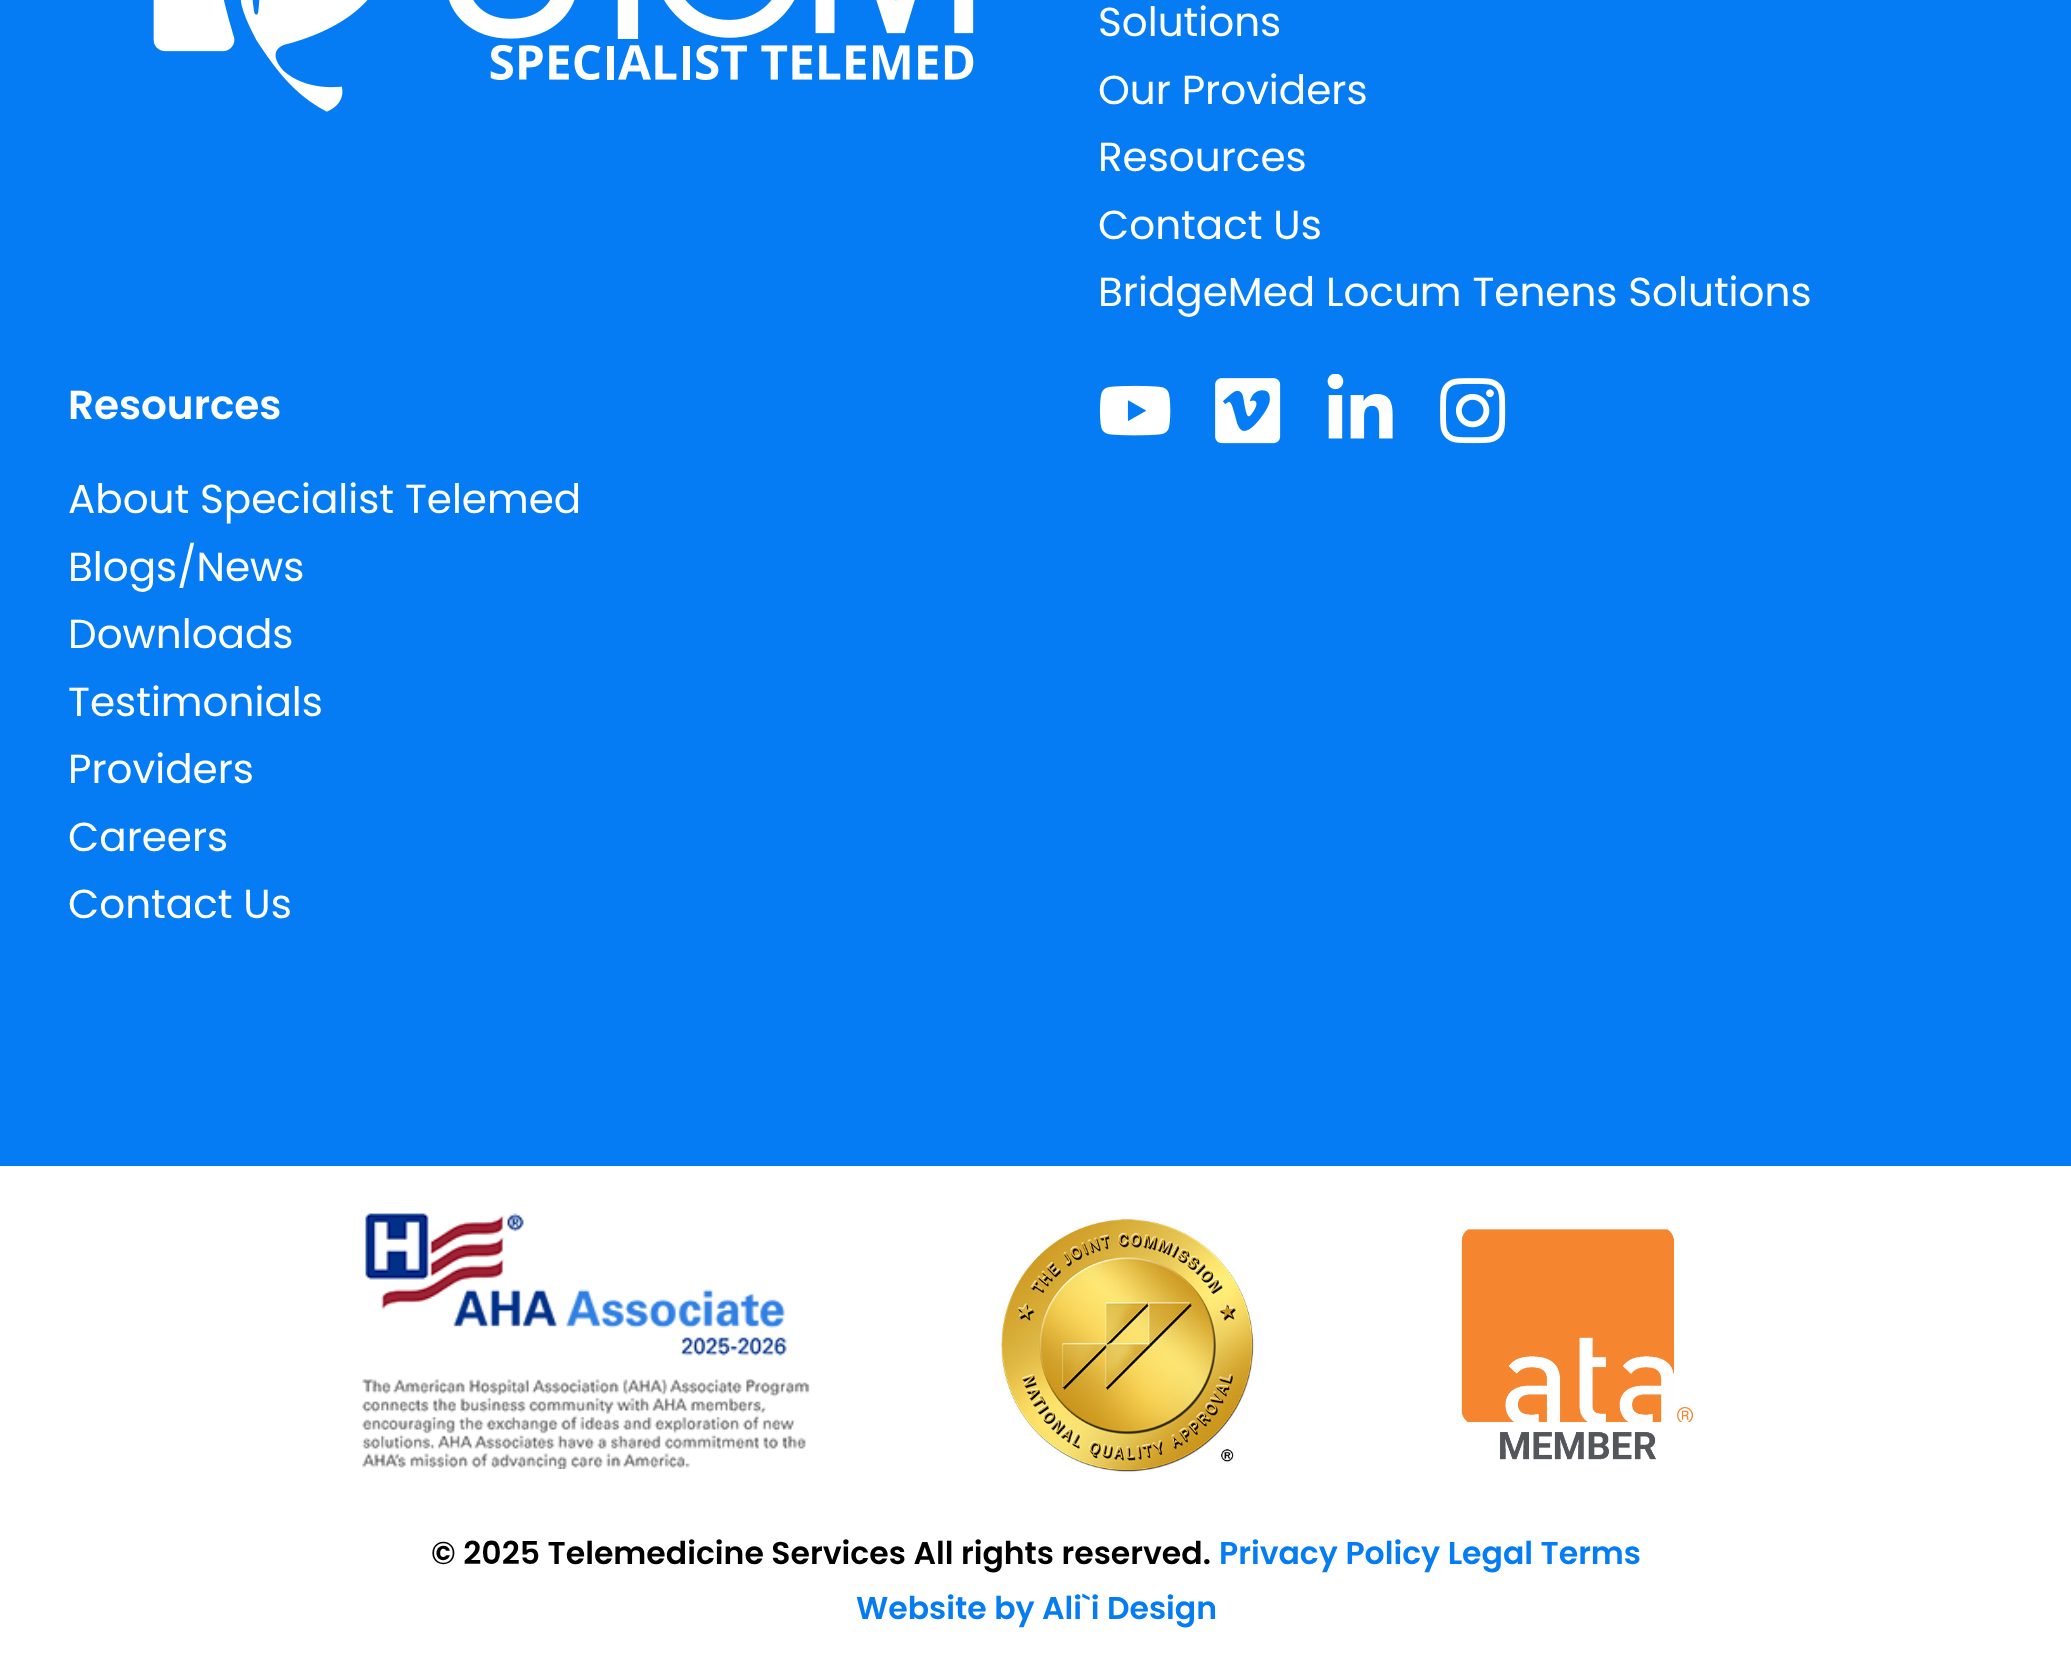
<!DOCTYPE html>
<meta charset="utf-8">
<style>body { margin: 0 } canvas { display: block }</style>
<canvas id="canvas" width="2071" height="1679"></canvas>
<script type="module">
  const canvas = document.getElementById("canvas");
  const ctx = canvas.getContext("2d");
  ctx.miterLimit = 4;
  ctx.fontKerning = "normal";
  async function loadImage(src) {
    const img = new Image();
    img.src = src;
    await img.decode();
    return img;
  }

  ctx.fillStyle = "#ffffff";
  ctx.fillRect(0, 0, 2071, 1679);
  ctx.fillStyle = "#057cf3";
  ctx.fillRect(0, 0, 2071, 1166);
  ctx.drawImage(await loadImage("img1.png"), 153, 0, 821, 112);
  ctx.font = "40.5px Poppins";
  ctx.fillStyle = "#ffffff";
  ctx.fillText("Solutions", 1098, 36);
  ctx.fillText("Our Providers", 1098, 104);
  ctx.fillText("Resources", 1098, 171);
  ctx.fillText("Contact Us", 1098, 239);
  ctx.fillText("BridgeMed Locum Tenens Solutions", 1098, 306);
  ctx.font = "600 40.5px Poppins";
  ctx.fillText("Resources", 68, 419);
  ctx.font = "40.5px Poppins";
  ctx.fillText("About Specialist Telemed", 68, 513);
  ctx.fillText("Blogs/News", 68, 581);
  ctx.fillText("Downloads", 68, 648);
  ctx.fillText("Testimonials", 68, 716);
  ctx.fillText("Providers", 68, 783);
  ctx.fillText("Careers", 68, 851);
  ctx.fillText("Contact Us", 68, 918);
  ctx.drawImage(await loadImage("img2.png"), 1099, 385, 72, 51);
  ctx.drawImage(await loadImage("img3.png"), 1215, 378, 66, 66);
  ctx.drawImage(await loadImage("img4.png"), 1327, 374, 66, 65);
  ctx.drawImage(await loadImage("img5.png"), 1440, 378, 66, 66);
  ctx.drawImage(await loadImage("img6.png"), 362, 1213, 448, 256);
  ctx.drawImage(await loadImage("img7.png"), 999, 1216, 258, 259);
  ctx.drawImage(await loadImage("img8.png"), 1461, 1229, 232, 231);
  ctx.font = "600 31.5px Poppins";
  ctx.fillStyle = "#000000";
  ctx.fillText("© 2025 Telemedicine Services All rights reserved.", 431, 1564);
  ctx.fillStyle = "#057cf3";
  ctx.fillText("Privacy Policy Legal Terms", 1219, 1564);
  ctx.fillText("Website by Ali`i Design", 856, 1619);
</script>
